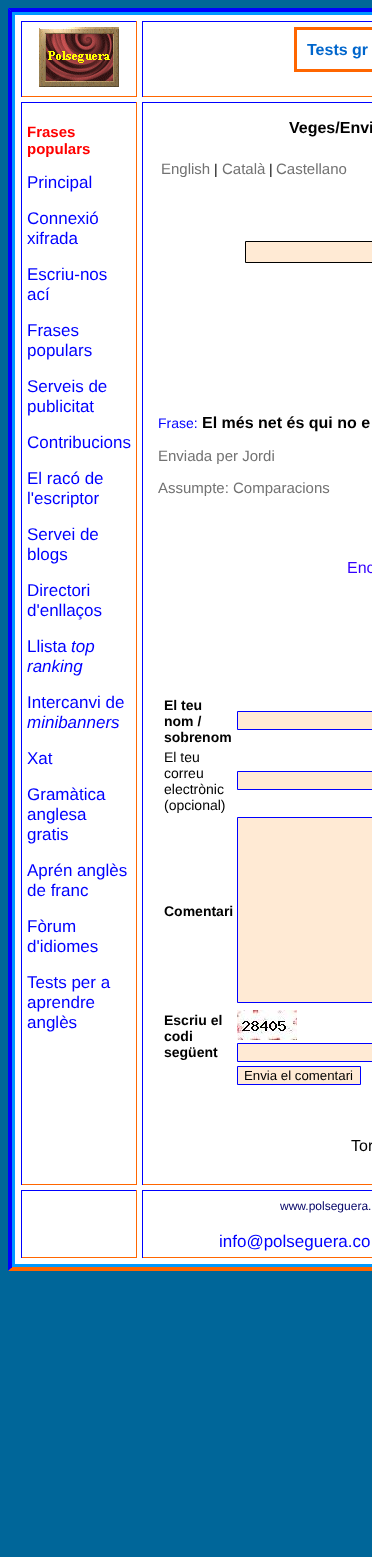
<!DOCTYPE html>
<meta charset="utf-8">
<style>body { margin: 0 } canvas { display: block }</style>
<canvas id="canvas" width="372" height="1557"></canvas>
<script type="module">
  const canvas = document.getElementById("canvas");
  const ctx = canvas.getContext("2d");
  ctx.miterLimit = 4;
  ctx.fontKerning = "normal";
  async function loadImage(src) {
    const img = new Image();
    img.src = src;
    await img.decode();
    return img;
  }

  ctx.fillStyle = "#006699";
  ctx.fillRect(0, 0, 372, 1557);
  ctx.fillStyle = "#0099ff";
  ctx.fillRect(8, 8, 364, 1263);
  ctx.fillStyle = "#0000ff";
  ctx.beginPath();
  ctx.moveTo(8, 8);
  ctx.lineTo(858, 8);
  ctx.lineTo(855, 11);
  ctx.lineTo(11, 11);
  ctx.closePath();
  ctx.fill();
  ctx.fillStyle = "#ff6600";
  ctx.beginPath();
  ctx.moveTo(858, 1271);
  ctx.lineTo(8, 1271);
  ctx.lineTo(11, 1268);
  ctx.lineTo(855, 1268);
  ctx.closePath();
  ctx.fill();
  ctx.fillStyle = "#0000ff";
  ctx.beginPath();
  ctx.moveTo(8, 1271);
  ctx.lineTo(8, 8);
  ctx.lineTo(11, 11);
  ctx.lineTo(11, 1268);
  ctx.closePath();
  ctx.fill();
  ctx.fillRect(11, 11, 361, 1);
  ctx.fillStyle = "#ff6600";
  ctx.fillRect(11, 1267, 361, 1);
  ctx.fillStyle = "#0000ff";
  ctx.fillRect(11, 11, 1, 1257);
  ctx.fillStyle = "#ffffff";
  ctx.fillRect(15, 15, 357, 1249);
  ctx.fillStyle = "#0000ff";
  ctx.fillRect(21, 21, 116, 1);
  ctx.fillStyle = "#ff6600";
  ctx.fillRect(136, 21, 1, 76);
  ctx.fillRect(21, 96, 116, 1);
  ctx.fillStyle = "#0000ff";
  ctx.fillRect(21, 21, 1, 76);
  ctx.drawImage(await loadImage("img1.png"), 39, 27, 80, 60);
  ctx.fillRect(142, 21, 230, 1);
  ctx.fillStyle = "#ff6600";
  ctx.fillRect(142, 96, 230, 1);
  ctx.fillStyle = "#0000ff";
  ctx.fillRect(142, 21, 1, 76);
  ctx.strokeStyle = "#ff6600";
  ctx.lineWidth = 2;
  ctx.strokeRect(295, 28, 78, 43);
  ctx.lineWidth = 1;
  ctx.strokeRect(296.5, 29.5, 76, 40);
  ctx.font = "bold 16px Liberation Sans";
  ctx.fillStyle = "#0066cc";
  ctx.fillText("Tests gr", 307, 55);
  ctx.fillStyle = "#0000ff";
  ctx.fillRect(21, 102, 116, 1);
  ctx.fillStyle = "#ff6600";
  ctx.fillRect(136, 102, 1, 1083);
  ctx.fillRect(21, 1184, 116, 1);
  ctx.fillStyle = "#0000ff";
  ctx.fillRect(21, 102, 1, 1083);
  ctx.font = "bold 15px Liberation Sans";
  ctx.fillStyle = "#ff0000";
  ctx.fillText("Frases", 27, 137);
  ctx.fillText("populars", 27, 154);
  ctx.font = "17px Liberation Sans";
  ctx.fillStyle = "#0000ff";
  ctx.fillText("Principal", 27, 188);
  ctx.fillText("Connexió", 27, 224);
  ctx.fillText("xifrada", 27, 244);
  ctx.fillText("Escriu-nos", 27, 280);
  ctx.fillText("ací", 27, 300);
  ctx.fillText("Frases", 27, 336);
  ctx.fillText("populars", 27, 356);
  ctx.fillText("Serveis de", 27, 392);
  ctx.fillText("publicitat", 27, 412);
  ctx.fillText("Contribucions", 27, 448);
  ctx.fillText("El racó de", 27, 484);
  ctx.fillText("l'escriptor", 27, 504);
  ctx.fillText("Servei de", 27, 540);
  ctx.fillText("blogs", 27, 560);
  ctx.fillText("Directori", 27, 596);
  ctx.fillText("d'enllaços", 27, 616);
  ctx.fillText("Llista", 27, 652);
  ctx.font = "italic 17px Liberation Sans";
  ctx.fillText("top", 71, 652);
  ctx.fillText("ranking", 27, 672);
  ctx.font = "17px Liberation Sans";
  ctx.fillText("Intercanvi de", 27, 708);
  ctx.font = "italic 17px Liberation Sans";
  ctx.fillText("minibanners", 27, 728);
  ctx.font = "17px Liberation Sans";
  ctx.fillText("Xat", 27, 764);
  ctx.fillText("Gramàtica", 27, 800);
  ctx.fillText("anglesa", 27, 820);
  ctx.fillText("gratis", 27, 840);
  ctx.fillText("Aprén anglès", 27, 876);
  ctx.fillText("de franc", 27, 896);
  ctx.fillText("Fòrum", 27, 932);
  ctx.fillText("d'idiomes", 27, 952);
  ctx.fillText("Tests per a", 27, 988);
  ctx.fillText("aprendre", 27, 1008);
  ctx.fillText("anglès", 27, 1028);
  ctx.fillRect(142, 102, 230, 1);
  ctx.fillStyle = "#ff6600";
  ctx.fillRect(142, 1184, 230, 1);
  ctx.fillStyle = "#0000ff";
  ctx.fillRect(142, 102, 1, 1083);
  ctx.font = "bold 16px Liberation Sans";
  ctx.fillStyle = "#000000";
  ctx.fillText("Veges/Envi", 289, 133);
  ctx.font = "15px Liberation Sans";
  ctx.fillStyle = "#727272";
  ctx.fillText("English", 161, 174);
  ctx.font = "14px Liberation Sans";
  ctx.fillStyle = "#000000";
  ctx.fillText("|", 214, 174);
  ctx.font = "15px Liberation Sans";
  ctx.fillStyle = "#727272";
  ctx.fillText("Català", 222, 174);
  ctx.font = "14px Liberation Sans";
  ctx.fillStyle = "#000000";
  ctx.fillText("|", 269, 174);
  ctx.font = "15px Liberation Sans";
  ctx.fillStyle = "#727272";
  ctx.fillText("Castellano", 276, 174);
  ctx.fillStyle = "#ffead4";
  ctx.beginPath();
  ctx.rect(245.5, 241.5, 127, 21);
  ctx.fill();
  ctx.strokeStyle = "#000000";
  ctx.stroke();
  ctx.font = "14px Liberation Sans";
  ctx.fillStyle = "#0000ff";
  ctx.fillText("Frase:", 158, 428);
  ctx.font = "bold 16px Liberation Sans";
  ctx.fillStyle = "#000000";
  ctx.fillText("El més net és qui no e", 202, 428);
  ctx.font = "15px Liberation Sans";
  ctx.fillStyle = "#727272";
  ctx.fillText("Enviada per Jordi", 158, 461);
  ctx.fillText("Assumpte: Comparacions", 158, 493);
  ctx.font = "16px Liberation Sans";
  ctx.fillStyle = "#3300ff";
  ctx.fillText("Enc", 347, 573);
  ctx.font = "bold 14px Liberation Sans";
  ctx.fillStyle = "#000000";
  ctx.fillText("El teu", 164, 710);
  ctx.fillText("nom /", 164, 726);
  ctx.fillText("sobrenom", 164, 742);
  ctx.fillStyle = "#ffead4";
  ctx.beginPath();
  ctx.rect(237.5, 711.5, 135, 18);
  ctx.fill();
  ctx.strokeStyle = "#0000ff";
  ctx.stroke();
  ctx.font = "14px Liberation Sans";
  ctx.fillStyle = "#000000";
  ctx.fillText("El teu", 164, 762);
  ctx.fillText("correu", 164, 778);
  ctx.fillText("electrònic", 164, 794);
  ctx.fillText("(opcional)", 164, 810);
  ctx.fillStyle = "#ffead4";
  ctx.beginPath();
  ctx.rect(237.5, 771.5, 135, 18);
  ctx.fill();
  ctx.stroke();
  ctx.font = "bold 14px Liberation Sans";
  ctx.fillStyle = "#000000";
  ctx.fillText("Comentari", 164, 916);
  ctx.fillStyle = "#ffead4";
  ctx.beginPath();
  ctx.rect(237.5, 817.5, 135, 185);
  ctx.fill();
  ctx.stroke();
  ctx.fillStyle = "#000000";
  ctx.fillText("Escriu el", 164, 1025);
  ctx.fillText("codi", 164, 1041);
  ctx.fillText("següent", 164, 1057);
  ctx.drawImage(await loadImage("img2.png"), 237, 1010, 60, 30);
  ctx.fillStyle = "#ffead4";
  ctx.beginPath();
  ctx.rect(237.5, 1043.5, 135, 18);
  ctx.fill();
  ctx.stroke();
  ctx.beginPath();
  ctx.rect(237.5, 1066.5, 123, 18);
  ctx.fill();
  ctx.stroke();
  ctx.font = "13.25px Liberation Sans";
  ctx.fillStyle = "#000000";
  ctx.fillText("Envia el comentari", 244, 1080);
  ctx.font = "16px Liberation Sans";
  ctx.fillText("Tor", 351, 1151);
  ctx.fillStyle = "#0000ff";
  ctx.fillRect(21, 1190, 116, 1);
  ctx.fillStyle = "#ff6600";
  ctx.fillRect(136, 1190, 1, 68);
  ctx.fillRect(21, 1257, 116, 1);
  ctx.fillStyle = "#0000ff";
  ctx.fillRect(21, 1190, 1, 68);
  ctx.fillRect(142, 1190, 230, 1);
  ctx.fillStyle = "#ff6600";
  ctx.fillRect(142, 1257, 230, 1);
  ctx.fillStyle = "#0000ff";
  ctx.fillRect(142, 1190, 1, 68);
  ctx.font = "12px Liberation Sans";
  ctx.fillStyle = "#000066";
  ctx.fillText("www.polseguera.", 280, 1210);
  ctx.font = "17px Liberation Sans";
  ctx.fillStyle = "#0000ff";
  ctx.fillText("info@polseguera.co", 219, 1247);
</script>
